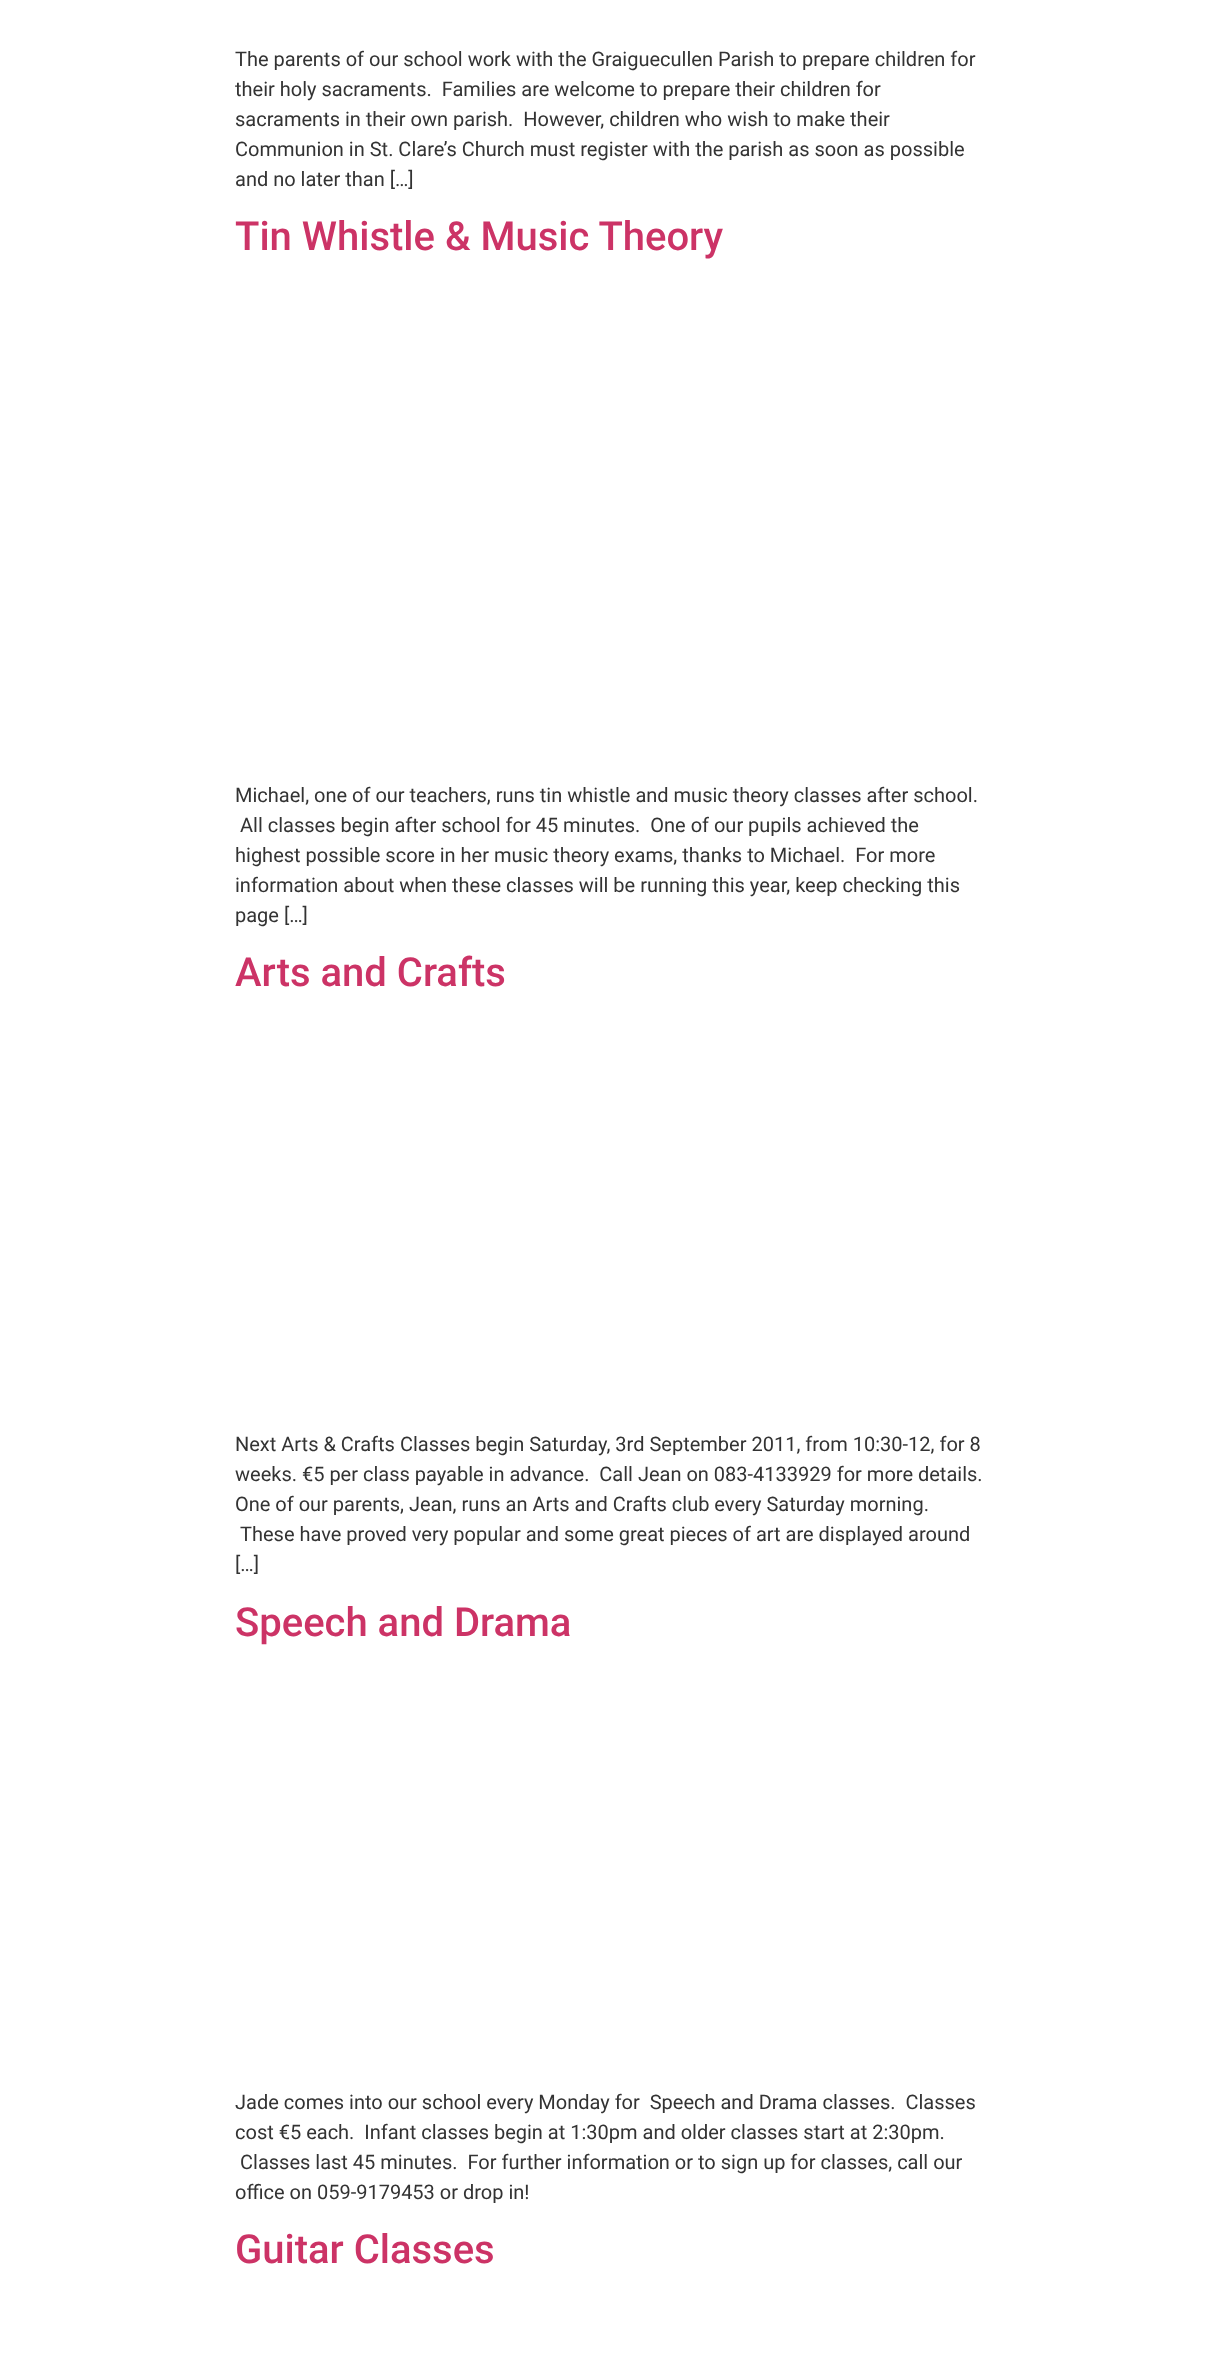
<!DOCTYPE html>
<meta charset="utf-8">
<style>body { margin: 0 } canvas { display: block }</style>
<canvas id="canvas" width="1219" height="2368"></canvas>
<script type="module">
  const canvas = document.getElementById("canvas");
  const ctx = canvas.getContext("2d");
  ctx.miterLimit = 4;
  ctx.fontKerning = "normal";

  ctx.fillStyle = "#ffffff";
  ctx.fillRect(0, 0, 1219, 2368);
  ctx.font = "20px Roboto";
  ctx.fillStyle = "#333333";
  ctx.fillText("The parents of our school work with the Graiguecullen Parish to prepare children for", 235, 66);
  ctx.fillText("their holy sacraments.  Families are welcome to prepare their children for", 235, 96);
  ctx.fillText("sacraments in their own parish.  However, children who wish to make their", 235, 126);
  ctx.fillText("Communion in St. Clare’s Church must register with the parish as soon as possible", 235, 156);
  ctx.fillText("and no later than […]", 235, 186);
  ctx.font = "500 40px Roboto";
  ctx.fillStyle = "#cc3366";
  ctx.fillText("Tin Whistle & Music Theory", 235, 250);
  ctx.font = "20px Roboto";
  ctx.fillStyle = "#333333";
  ctx.fillText("Michael, one of our teachers, runs tin whistle and music theory classes after school.", 235, 802);
  ctx.fillText("All classes begin after school for 45 minutes.  One of our pupils achieved the", 240, 832);
  ctx.fillText("highest possible score in her music theory exams, thanks to Michael.  For more", 235, 862);
  ctx.fillText("information about when these classes will be running this year, keep checking this", 235, 892);
  ctx.fillText("page […]", 235, 922);
  ctx.font = "500 40px Roboto";
  ctx.fillStyle = "#cc3366";
  ctx.fillText("Arts and Crafts", 235, 986);
  ctx.font = "20px Roboto";
  ctx.fillStyle = "#333333";
  ctx.fillText("Next Arts & Crafts Classes begin Saturday, 3rd September 2011, from 10:30-12, for 8", 235, 1451);
  ctx.fillText("weeks. €5 per class payable in advance.  Call Jean on 083-4133929 for more details.", 235, 1481);
  ctx.fillText("One of our parents, Jean, runs an Arts and Crafts club every Saturday morning.", 235, 1511);
  ctx.fillText("These have proved very popular and some great pieces of art are displayed around", 240, 1541);
  ctx.fillText("[…]", 235, 1571);
  ctx.font = "500 40px Roboto";
  ctx.fillStyle = "#cc3366";
  ctx.fillText("Speech and Drama", 235, 1636);
  ctx.font = "20px Roboto";
  ctx.fillStyle = "#333333";
  ctx.fillText("Jade comes into our school every Monday for  Speech and Drama classes.  Classes", 235, 2109);
  ctx.fillText("cost €5 each.  Infant classes begin at 1:30pm and older classes start at 2:30pm.", 235, 2139);
  ctx.fillText("Classes last 45 minutes.  For further information or to sign up for classes, call our", 240, 2169);
  ctx.fillText("office on 059-9179453 or drop in!", 235, 2199);
  ctx.font = "500 40px Roboto";
  ctx.fillStyle = "#cc3366";
  ctx.fillText("Guitar Classes", 235, 2263);
</script>
